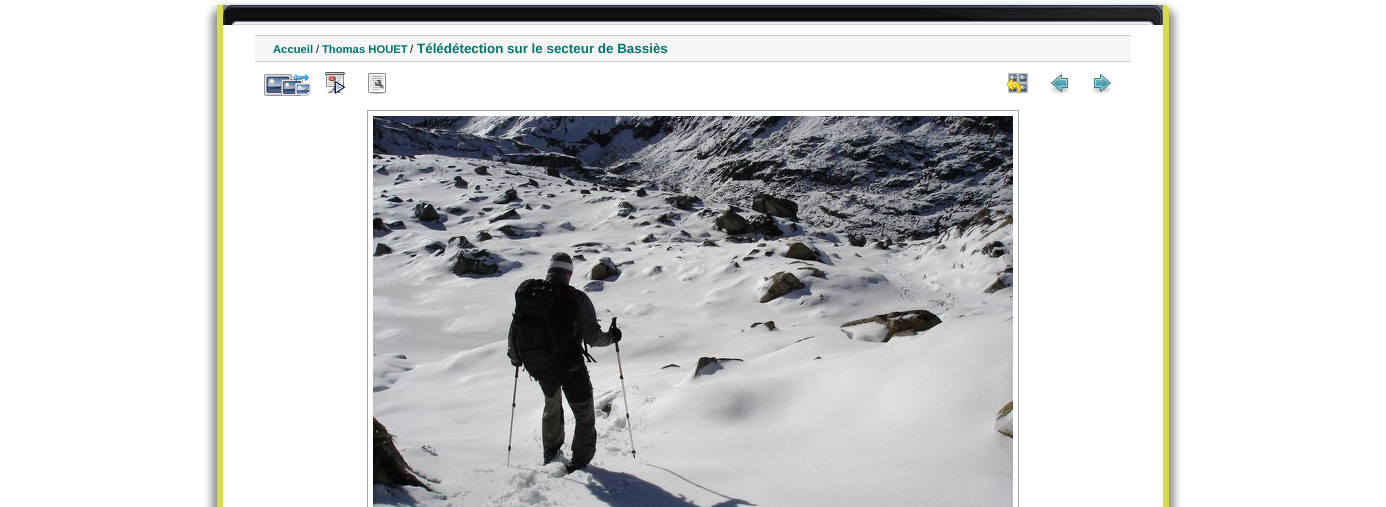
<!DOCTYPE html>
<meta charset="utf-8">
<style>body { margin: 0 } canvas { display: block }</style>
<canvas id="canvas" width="1386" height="507"></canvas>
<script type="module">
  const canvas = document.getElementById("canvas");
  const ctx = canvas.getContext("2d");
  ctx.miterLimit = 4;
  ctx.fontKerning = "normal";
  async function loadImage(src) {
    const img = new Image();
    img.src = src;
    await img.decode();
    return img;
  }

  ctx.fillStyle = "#ffffff";
  ctx.fillRect(0, 0, 1386, 507);
  ctx.save();
  ctx.beginPath();
  ctx.moveTo(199, 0);
  ctx.lineTo(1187, 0);
  ctx.lineTo(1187, 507);
  ctx.lineTo(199, 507);
  ctx.closePath();
  ctx.moveTo(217, 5);
  ctx.lineTo(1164, 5);
  ctx.bezierCurveTo(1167, 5, 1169, 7, 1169, 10);
  ctx.lineTo(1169, 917);
  ctx.bezierCurveTo(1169, 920, 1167, 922, 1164, 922);
  ctx.lineTo(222, 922);
  ctx.bezierCurveTo(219, 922, 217, 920, 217, 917);
  ctx.closePath();
  ctx.clip("evenodd");
  ctx.fillStyle = "#888888";
  ctx.filter = "blur(4px)";
  ctx.beginPath();
  ctx.roundRect(212, 8, 962, 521, 10);
  ctx.fill();
  ctx.filter = "none";
  ctx.restore();
  ctx.fillStyle = "#d8db4b";
  ctx.beginPath();
  ctx.moveTo(217, 5);
  ctx.lineTo(1164, 5);
  ctx.bezierCurveTo(1167, 5, 1169, 7, 1169, 10);
  ctx.lineTo(1169, 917);
  ctx.bezierCurveTo(1169, 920, 1167, 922, 1164, 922);
  ctx.lineTo(222, 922);
  ctx.bezierCurveTo(219, 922, 217, 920, 217, 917);
  ctx.closePath();
  ctx.moveTo(223, 5);
  ctx.lineTo(1163, 5);
  ctx.lineTo(1163, 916);
  ctx.lineTo(223, 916);
  ctx.closePath();
  ctx.fill("evenodd");
  ctx.drawImage(await loadImage("img1.png"), 223, 5, 940, 20);
  ctx.fillStyle = "#f5f5f5";
  ctx.fillRect(255, 36, 876, 25);
  ctx.fillStyle = "#cdcdcd";
  ctx.fillRect(255, 35, 876, 1);
  ctx.fillRect(255, 61, 876, 1);
  ctx.font = "bold 11.25px Liberation Sans";
  ctx.fillStyle = "#00786a";
  ctx.fillText("Accueil", 273, 53);
  ctx.font = "11.25px Liberation Sans";
  ctx.fillStyle = "#000000";
  ctx.fillText("/", 316, 53);
  ctx.font = "bold 11.25px Liberation Sans";
  ctx.fillStyle = "#00786a";
  ctx.fillText("Thomas HOUET", 322, 53);
  ctx.font = "11.25px Liberation Sans";
  ctx.fillStyle = "#000000";
  ctx.fillText("/", 410, 53);
  ctx.font = "bold 13.4px Liberation Sans";
  ctx.fillStyle = "#00786a";
  ctx.fillText("Télédétection sur le secteur de Bassiès", 417, 53);
  ctx.drawImage(await loadImage("img2.png"), 264, 74, 47, 22);
  ctx.drawImage(await loadImage("img3.png"), 325, 72, 21, 22);
  ctx.drawImage(await loadImage("img4.png"), 368, 73, 18, 21);
  ctx.drawImage(await loadImage("img5.png"), 1007, 73, 21, 21);
  ctx.drawImage(await loadImage("img6.png"), 1050, 74, 21, 20);
  ctx.drawImage(await loadImage("img7.png"), 1091, 74, 21, 20);
  ctx.strokeStyle = "#aaaaaa";
  ctx.strokeRect(367.5, 110.5, 651, 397);
  ctx.drawImage(await loadImage("img8.png"), 373, 116, 640, 391);
</script>
